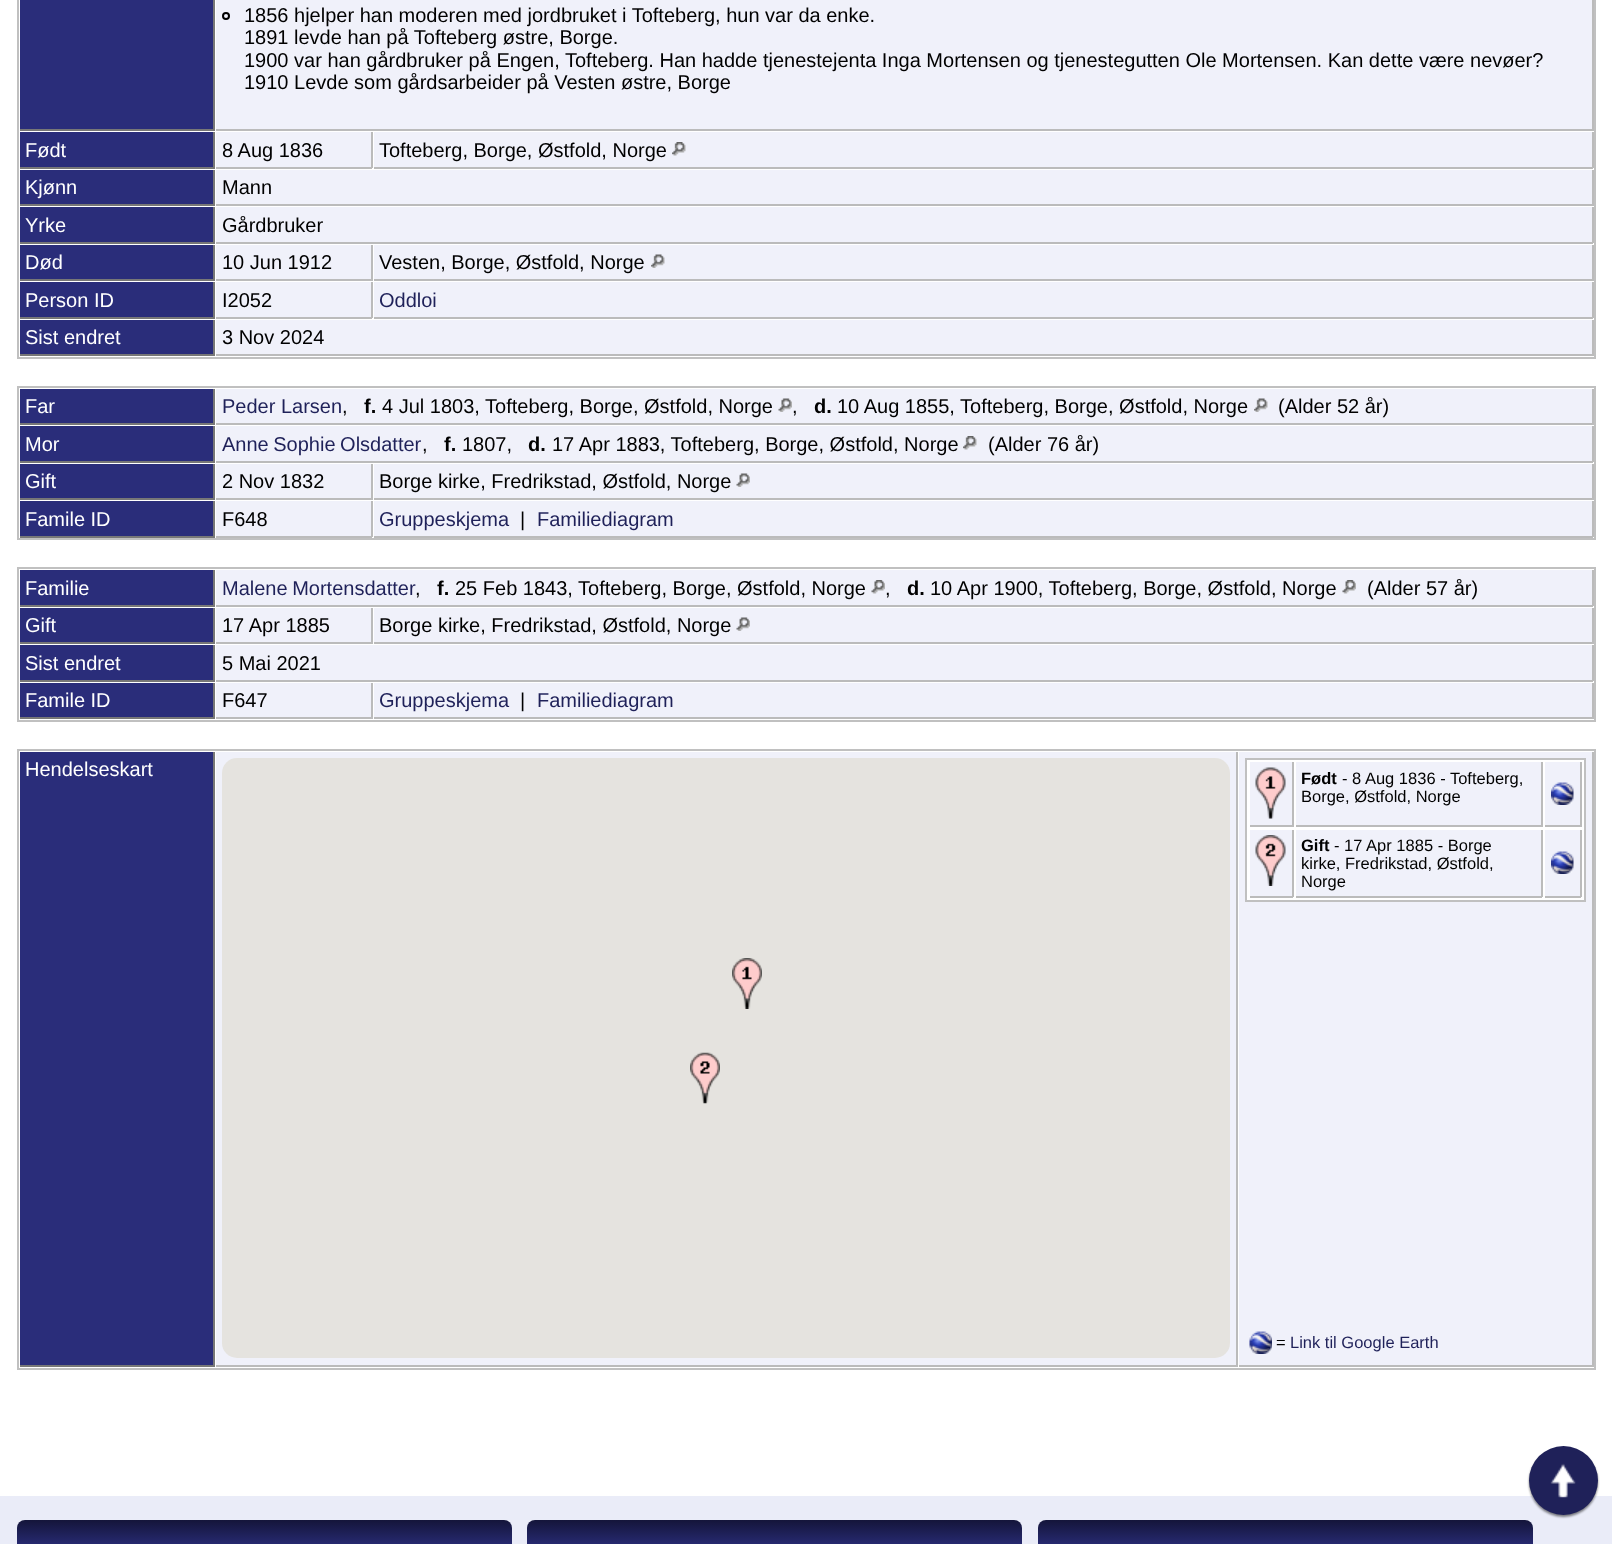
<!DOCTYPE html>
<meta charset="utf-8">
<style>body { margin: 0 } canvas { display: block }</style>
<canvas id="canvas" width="1612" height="1544"></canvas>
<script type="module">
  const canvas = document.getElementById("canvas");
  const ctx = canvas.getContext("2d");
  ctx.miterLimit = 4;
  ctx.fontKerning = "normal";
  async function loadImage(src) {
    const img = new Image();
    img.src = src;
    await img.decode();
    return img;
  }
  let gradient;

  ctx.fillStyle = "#ffffff";
  ctx.fillRect(0, 0, 1612, 1544);
  ctx.strokeStyle = "#c0c0c0";
  ctx.lineWidth = 2;
  ctx.strokeRect(18, -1, 1577, 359);
  ctx.fillStyle = "#2a2d7a";
  ctx.fillRect(20, 0, 193, 129);
  ctx.fillStyle = "#777777";
  ctx.fillRect(213, 0, 2, 131);
  ctx.fillRect(20, 129, 195, 2);
  ctx.fillStyle = "#f0f1fa";
  ctx.fillRect(216, 0, 1376, 129);
  ctx.fillStyle = "#bbbbbb";
  ctx.fillRect(1592, 0, 2, 131);
  ctx.fillRect(216, 129, 1377, 2);
  ctx.beginPath();
  ctx.arc(226, 16, 3, 0, Math.PI * 2);
  ctx.strokeStyle = "#000000";
  ctx.stroke();
  ctx.font = "20px Liberation Sans";
  ctx.fillStyle = "#000000";
  ctx.fillText("1856 hjelper han moderen med jordbruket i Tofteberg, hun var da enke.", 244, 22);
  ctx.fillText("1891 levde han på Tofteberg østre, Borge.", 244, 44);
  ctx.fillText("1900 var han gårdbruker på Engen, Tofteberg. Han hadde tjenestejenta Inga Mortensen og tjenestegutten Ole Mortensen. Kan dette være nevøer?", 244, 67);
  ctx.fillText("1910 Levde som gårdsarbeider på Vesten østre, Borge", 244, 89);
  ctx.fillStyle = "#2a2d7a";
  ctx.fillRect(20, 132, 193, 35);
  ctx.fillStyle = "#777777";
  ctx.fillRect(213, 132, 2, 36);
  ctx.fillRect(20, 167, 195, 2);
  ctx.fillStyle = "#ffffff";
  ctx.fillText("Født", 25, 157);
  ctx.fillStyle = "#f0f1fa";
  ctx.fillRect(216, 132, 155, 35);
  ctx.fillStyle = "#bbbbbb";
  ctx.fillRect(371, 132, 2, 36);
  ctx.fillRect(216, 167, 156, 2);
  ctx.fillStyle = "#000000";
  ctx.fillText("8 Aug 1836", 222, 157);
  ctx.fillStyle = "#f0f1fa";
  ctx.fillRect(374, 132, 1218, 35);
  ctx.fillStyle = "#bbbbbb";
  ctx.fillRect(1592, 132, 2, 36);
  ctx.fillRect(374, 167, 1219, 2);
  ctx.fillStyle = "#000000";
  ctx.fillText("Tofteberg, Borge, Østfold, Norge", 379, 157);
  ctx.drawImage(await loadImage("img1.png"), 672, 142, 14, 14);
  ctx.fillStyle = "#2a2d7a";
  ctx.fillRect(20, 170, 193, 34);
  ctx.fillStyle = "#777777";
  ctx.fillRect(213, 170, 2, 36);
  ctx.fillRect(20, 204, 195, 2);
  ctx.fillStyle = "#ffffff";
  ctx.fillText("Kjønn", 25, 194);
  ctx.fillStyle = "#f0f1fa";
  ctx.fillRect(216, 170, 1376, 34);
  ctx.fillStyle = "#bbbbbb";
  ctx.fillRect(1592, 170, 2, 36);
  ctx.fillRect(216, 204, 1377, 2);
  ctx.fillStyle = "#000000";
  ctx.fillText("Mann", 222, 194);
  ctx.fillStyle = "#2a2d7a";
  ctx.fillRect(20, 207, 193, 35);
  ctx.fillStyle = "#777777";
  ctx.fillRect(213, 207, 2, 36);
  ctx.fillRect(20, 242, 195, 2);
  ctx.fillStyle = "#ffffff";
  ctx.fillText("Yrke", 25, 232);
  ctx.fillStyle = "#f0f1fa";
  ctx.fillRect(216, 207, 1376, 35);
  ctx.fillStyle = "#bbbbbb";
  ctx.fillRect(1592, 207, 2, 36);
  ctx.fillRect(216, 242, 1377, 2);
  ctx.fillStyle = "#000000";
  ctx.fillText("Gårdbruker", 222, 232);
  ctx.fillStyle = "#2a2d7a";
  ctx.fillRect(20, 245, 193, 34);
  ctx.fillStyle = "#777777";
  ctx.fillRect(213, 245, 2, 36);
  ctx.fillRect(20, 279, 195, 2);
  ctx.fillStyle = "#ffffff";
  ctx.fillText("Død", 25, 269);
  ctx.fillStyle = "#f0f1fa";
  ctx.fillRect(216, 245, 155, 34);
  ctx.fillStyle = "#bbbbbb";
  ctx.fillRect(371, 245, 2, 36);
  ctx.fillRect(216, 279, 156, 2);
  ctx.fillStyle = "#000000";
  ctx.fillText("10 Jun 1912", 222, 269);
  ctx.fillStyle = "#f0f1fa";
  ctx.fillRect(374, 245, 1218, 34);
  ctx.fillStyle = "#bbbbbb";
  ctx.fillRect(1592, 245, 2, 36);
  ctx.fillRect(374, 279, 1219, 2);
  ctx.fillStyle = "#000000";
  ctx.fillText("Vesten, Borge, Østfold, Norge", 379, 269);
  ctx.drawImage(await loadImage("img2.png"), 651, 254, 14, 14);
  ctx.fillStyle = "#2a2d7a";
  ctx.fillRect(20, 282, 193, 35);
  ctx.fillStyle = "#777777";
  ctx.fillRect(213, 282, 2, 36);
  ctx.fillRect(20, 317, 195, 2);
  ctx.fillStyle = "#ffffff";
  ctx.fillText("Person ID", 25, 307);
  ctx.fillStyle = "#f0f1fa";
  ctx.fillRect(216, 282, 155, 35);
  ctx.fillStyle = "#bbbbbb";
  ctx.fillRect(371, 282, 2, 36);
  ctx.fillRect(216, 317, 156, 2);
  ctx.fillStyle = "#000000";
  ctx.fillText("I2052", 222, 307);
  ctx.fillStyle = "#f0f1fa";
  ctx.fillRect(374, 282, 1218, 35);
  ctx.fillStyle = "#bbbbbb";
  ctx.fillRect(1592, 282, 2, 36);
  ctx.fillRect(374, 317, 1219, 2);
  ctx.fillStyle = "#1f2159";
  ctx.fillText("Oddloi", 379, 307);
  ctx.fillStyle = "#2a2d7a";
  ctx.fillRect(20, 320, 193, 34);
  ctx.fillStyle = "#777777";
  ctx.fillRect(213, 320, 2, 36);
  ctx.fillRect(20, 354, 195, 2);
  ctx.fillStyle = "#ffffff";
  ctx.fillText("Sist endret", 25, 344);
  ctx.fillStyle = "#f0f1fa";
  ctx.fillRect(216, 320, 1376, 34);
  ctx.fillStyle = "#bbbbbb";
  ctx.fillRect(1592, 320, 2, 36);
  ctx.fillRect(216, 354, 1377, 2);
  ctx.fillStyle = "#000000";
  ctx.fillText("3 Nov 2024", 222, 344);
  ctx.strokeStyle = "#c0c0c0";
  ctx.strokeRect(18, 387, 1577, 152);
  ctx.fillStyle = "#2a2d7a";
  ctx.fillRect(20, 389, 193, 34);
  ctx.fillStyle = "#777777";
  ctx.fillRect(213, 389, 2, 36);
  ctx.fillRect(20, 423, 195, 2);
  ctx.fillStyle = "#ffffff";
  ctx.fillText("Far", 25, 413);
  ctx.fillStyle = "#f0f1fa";
  ctx.fillRect(216, 389, 1376, 34);
  ctx.fillStyle = "#bbbbbb";
  ctx.fillRect(1592, 389, 2, 36);
  ctx.fillRect(216, 423, 1377, 2);
  ctx.fillStyle = "#1f2159";
  ctx.fillText("Peder Larsen", 222, 413);
  ctx.font = "bold 20px Liberation Sans";
  ctx.fillStyle = "#000000";
  ctx.fillText("f.", 364, 413);
  ctx.font = "20px Liberation Sans";
  ctx.fillText("4 Jul 1803, Tofteberg, Borge, Østfold, Norge", 382, 413);
  ctx.drawImage(await loadImage("img3.png"), 778, 398, 14, 14);
  ctx.font = "bold 20px Liberation Sans";
  ctx.fillText("d.", 814, 413);
  ctx.font = "20px Liberation Sans";
  ctx.fillText("10 Aug 1855, Tofteberg, Borge, Østfold, Norge", 837, 413);
  ctx.drawImage(await loadImage("img4.png"), 1254, 398, 14, 14);
  ctx.fillText("(Alder 52 år)", 1278, 413);
  ctx.fillText(",", 342, 413);
  ctx.fillText(",", 792, 413);
  ctx.fillStyle = "#2a2d7a";
  ctx.fillRect(20, 426, 193, 35);
  ctx.fillStyle = "#777777";
  ctx.fillRect(213, 426, 2, 36);
  ctx.fillRect(20, 461, 195, 2);
  ctx.fillStyle = "#ffffff";
  ctx.fillText("Mor", 25, 451);
  ctx.fillStyle = "#f0f1fa";
  ctx.fillRect(216, 426, 1376, 35);
  ctx.fillStyle = "#bbbbbb";
  ctx.fillRect(1592, 426, 2, 36);
  ctx.fillRect(216, 461, 1377, 2);
  ctx.wordSpacing = "-1px";
  ctx.fillStyle = "#1f2159";
  ctx.fillText("Anne Sophie Olsdatter", 222, 451);
  ctx.wordSpacing = "0px";
  ctx.fillStyle = "#000000";
  ctx.fillText(",", 422, 451);
  ctx.font = "bold 20px Liberation Sans";
  ctx.fillText("f.", 444, 451);
  ctx.font = "20px Liberation Sans";
  ctx.fillText("1807,", 462, 451);
  ctx.font = "bold 20px Liberation Sans";
  ctx.fillText("d.", 528, 451);
  ctx.font = "20px Liberation Sans";
  ctx.fillText("17 Apr 1883, Tofteberg, Borge, Østfold, Norge", 552, 451);
  ctx.drawImage(await loadImage("img1.png"), 963, 436, 14, 14);
  ctx.fillText("(Alder 76 år)", 988, 451);
  ctx.fillStyle = "#2a2d7a";
  ctx.fillRect(20, 464, 193, 34);
  ctx.fillStyle = "#777777";
  ctx.fillRect(213, 464, 2, 36);
  ctx.fillRect(20, 498, 195, 2);
  ctx.fillStyle = "#ffffff";
  ctx.fillText("Gift", 25, 488);
  ctx.fillStyle = "#f0f1fa";
  ctx.fillRect(216, 464, 155, 34);
  ctx.fillStyle = "#bbbbbb";
  ctx.fillRect(371, 464, 2, 36);
  ctx.fillRect(216, 498, 156, 2);
  ctx.fillStyle = "#000000";
  ctx.fillText("2 Nov 1832", 222, 488);
  ctx.fillStyle = "#f0f1fa";
  ctx.fillRect(374, 464, 1218, 34);
  ctx.fillStyle = "#bbbbbb";
  ctx.fillRect(1592, 464, 2, 36);
  ctx.fillRect(374, 498, 1219, 2);
  ctx.fillStyle = "#000000";
  ctx.fillText("Borge kirke, Fredrikstad, Østfold, Norge", 379, 488);
  ctx.drawImage(await loadImage("img5.png"), 736, 473, 14, 14);
  ctx.fillStyle = "#2a2d7a";
  ctx.fillRect(20, 501, 193, 35);
  ctx.fillStyle = "#777777";
  ctx.fillRect(213, 501, 2, 36);
  ctx.fillRect(20, 536, 195, 2);
  ctx.fillStyle = "#ffffff";
  ctx.fillText("Famile ID", 25, 526);
  ctx.fillStyle = "#f0f1fa";
  ctx.fillRect(216, 501, 155, 35);
  ctx.fillStyle = "#bbbbbb";
  ctx.fillRect(371, 501, 2, 36);
  ctx.fillRect(216, 536, 156, 2);
  ctx.fillStyle = "#000000";
  ctx.fillText("F648", 222, 526);
  ctx.fillStyle = "#f0f1fa";
  ctx.fillRect(374, 501, 1218, 35);
  ctx.fillStyle = "#bbbbbb";
  ctx.fillRect(1592, 501, 2, 36);
  ctx.fillRect(374, 536, 1219, 2);
  ctx.fillStyle = "#1f2159";
  ctx.fillText("Gruppeskjema", 379, 526);
  ctx.fillStyle = "#000000";
  ctx.fillText("|", 520, 526);
  ctx.fillStyle = "#1f2159";
  ctx.fillText("Familiediagram", 537, 526);
  ctx.strokeRect(18, 568, 1577, 153);
  ctx.fillStyle = "#2a2d7a";
  ctx.fillRect(20, 570, 193, 35);
  ctx.fillStyle = "#777777";
  ctx.fillRect(213, 570, 2, 36);
  ctx.fillRect(20, 605, 195, 2);
  ctx.fillStyle = "#ffffff";
  ctx.fillText("Familie", 25, 595);
  ctx.fillStyle = "#f0f1fa";
  ctx.fillRect(216, 570, 1376, 35);
  ctx.fillStyle = "#bbbbbb";
  ctx.fillRect(1592, 570, 2, 36);
  ctx.fillRect(216, 605, 1377, 2);
  ctx.wordSpacing = "-1px";
  ctx.fillStyle = "#1f2159";
  ctx.fillText("Malene Mortensdatter", 222, 595);
  ctx.wordSpacing = "0px";
  ctx.font = "bold 20px Liberation Sans";
  ctx.fillStyle = "#000000";
  ctx.fillText("f.", 437, 595);
  ctx.font = "20px Liberation Sans";
  ctx.fillText("25 Feb 1843, Tofteberg, Borge, Østfold, Norge", 455, 595);
  ctx.drawImage(await loadImage("img6.png"), 871, 580, 14, 14);
  ctx.font = "bold 20px Liberation Sans";
  ctx.fillText("d.", 907, 595);
  ctx.font = "20px Liberation Sans";
  ctx.fillText("10 Apr 1900, Tofteberg, Borge, Østfold, Norge", 930, 595);
  ctx.drawImage(await loadImage("img7.png"), 1342, 580, 14, 14);
  ctx.fillText("(Alder 57 år)", 1367, 595);
  ctx.fillText(",", 415, 595);
  ctx.fillText(",", 885, 595);
  ctx.fillStyle = "#2a2d7a";
  ctx.fillRect(20, 608, 193, 34);
  ctx.fillStyle = "#777777";
  ctx.fillRect(213, 608, 2, 36);
  ctx.fillRect(20, 642, 195, 2);
  ctx.fillStyle = "#ffffff";
  ctx.fillText("Gift", 25, 632);
  ctx.fillStyle = "#f0f1fa";
  ctx.fillRect(216, 608, 155, 34);
  ctx.fillStyle = "#bbbbbb";
  ctx.fillRect(371, 608, 2, 36);
  ctx.fillRect(216, 642, 156, 2);
  ctx.fillStyle = "#000000";
  ctx.fillText("17 Apr 1885", 222, 632);
  ctx.fillStyle = "#f0f1fa";
  ctx.fillRect(374, 608, 1218, 34);
  ctx.fillStyle = "#bbbbbb";
  ctx.fillRect(1592, 608, 2, 36);
  ctx.fillRect(374, 642, 1219, 2);
  ctx.fillStyle = "#000000";
  ctx.fillText("Borge kirke, Fredrikstad, Østfold, Norge", 379, 632);
  ctx.drawImage(await loadImage("img5.png"), 736, 617, 14, 14);
  ctx.fillStyle = "#2a2d7a";
  ctx.fillRect(20, 645, 193, 35);
  ctx.fillStyle = "#777777";
  ctx.fillRect(213, 645, 2, 36);
  ctx.fillRect(20, 680, 195, 2);
  ctx.fillStyle = "#ffffff";
  ctx.fillText("Sist endret", 25, 670);
  ctx.fillStyle = "#f0f1fa";
  ctx.fillRect(216, 645, 1376, 35);
  ctx.fillStyle = "#bbbbbb";
  ctx.fillRect(1592, 645, 2, 36);
  ctx.fillRect(216, 680, 1377, 2);
  ctx.fillStyle = "#000000";
  ctx.fillText("5 Mai 2021", 222, 670);
  ctx.fillStyle = "#2a2d7a";
  ctx.fillRect(20, 683, 193, 34);
  ctx.fillStyle = "#777777";
  ctx.fillRect(213, 683, 2, 36);
  ctx.fillRect(20, 717, 195, 2);
  ctx.fillStyle = "#ffffff";
  ctx.fillText("Famile ID", 25, 707);
  ctx.fillStyle = "#f0f1fa";
  ctx.fillRect(216, 683, 155, 34);
  ctx.fillStyle = "#bbbbbb";
  ctx.fillRect(371, 683, 2, 36);
  ctx.fillRect(216, 717, 156, 2);
  ctx.fillStyle = "#000000";
  ctx.fillText("F647", 222, 707);
  ctx.fillStyle = "#f0f1fa";
  ctx.fillRect(374, 683, 1218, 34);
  ctx.fillStyle = "#bbbbbb";
  ctx.fillRect(1592, 683, 2, 36);
  ctx.fillRect(374, 717, 1219, 2);
  ctx.fillStyle = "#1f2159";
  ctx.fillText("Gruppeskjema", 379, 707);
  ctx.fillStyle = "#000000";
  ctx.fillText("|", 520, 707);
  ctx.fillStyle = "#1f2159";
  ctx.fillText("Familiediagram", 537, 707);
  ctx.strokeRect(18, 750, 1577, 619);
  ctx.fillStyle = "#2a2d7a";
  ctx.fillRect(20, 752, 193, 613);
  ctx.fillStyle = "#777777";
  ctx.fillRect(213, 752, 2, 615);
  ctx.fillRect(20, 1365, 195, 2);
  ctx.fillStyle = "#ffffff";
  ctx.fillText("Hendelseskart", 25, 776);
  ctx.fillStyle = "#f0f1fa";
  ctx.fillRect(216, 752, 1020, 613);
  ctx.fillStyle = "#bbbbbb";
  ctx.fillRect(1236, 752, 2, 615);
  ctx.fillRect(216, 1365, 1022, 2);
  ctx.fillStyle = "#e5e3df";
  ctx.beginPath();
  ctx.roundRect(222, 758, 1008, 600, 15);
  ctx.fill();
  ctx.drawImage(await loadImage("img8.png"), 732, 958, 30, 51);
  ctx.drawImage(await loadImage("img9.png"), 690, 1052, 30, 52);
  ctx.fillStyle = "#f0f1fa";
  ctx.fillRect(1239, 752, 353, 613);
  ctx.fillStyle = "#bbbbbb";
  ctx.fillRect(1592, 752, 2, 615);
  ctx.fillRect(1239, 1365, 354, 2);
  ctx.fillStyle = "#ffffff";
  ctx.beginPath();
  ctx.rect(1246, 759, 339, 142);
  ctx.fill();
  ctx.stroke();
  ctx.fillStyle = "#f0f1fa";
  ctx.fillRect(1250, 762, 42, 63);
  ctx.fillStyle = "#bbbbbb";
  ctx.fillRect(1292, 762, 2, 65);
  ctx.fillRect(1250, 825, 43, 2);
  ctx.drawImage(await loadImage("img10.png"), 1255, 767, 31, 52);
  ctx.fillStyle = "#f0f1fa";
  ctx.fillRect(1296, 762, 245, 63);
  ctx.fillStyle = "#bbbbbb";
  ctx.fillRect(1541, 762, 2, 65);
  ctx.fillRect(1296, 825, 246, 2);
  ctx.font = "bold 16.5px Liberation Sans";
  ctx.fillStyle = "#000000";
  ctx.fillText("Født", 1301, 784);
  ctx.font = "16.5px Liberation Sans";
  ctx.fillText("- 8 Aug 1836 - Tofteberg,", 1342, 784);
  ctx.fillText("Borge, Østfold, Norge", 1301, 802);
  ctx.fillStyle = "#f0f1fa";
  ctx.fillRect(1545, 762, 35, 63);
  ctx.fillStyle = "#bbbbbb";
  ctx.fillRect(1580, 762, 2, 65);
  ctx.fillRect(1545, 825, 36, 2);
  ctx.drawImage(await loadImage("img11.png"), 1551, 782, 23, 23);
  ctx.fillStyle = "#f0f1fa";
  ctx.fillRect(1250, 830, 42, 66);
  ctx.fillStyle = "#bbbbbb";
  ctx.fillRect(1292, 830, 2, 67);
  ctx.fillRect(1250, 896, 43, 2);
  ctx.drawImage(await loadImage("img12.png"), 1255, 835, 31, 51);
  ctx.fillStyle = "#f0f1fa";
  ctx.fillRect(1296, 830, 245, 66);
  ctx.fillStyle = "#bbbbbb";
  ctx.fillRect(1541, 830, 2, 67);
  ctx.fillRect(1296, 896, 246, 2);
  ctx.font = "bold 16.5px Liberation Sans";
  ctx.fillStyle = "#000000";
  ctx.fillText("Gift", 1301, 851);
  ctx.font = "16.5px Liberation Sans";
  ctx.fillText("- 17 Apr 1885 - Borge", 1334, 851);
  ctx.fillText("kirke, Fredrikstad, Østfold,", 1301, 869);
  ctx.fillText("Norge", 1301, 887);
  ctx.fillStyle = "#f0f1fa";
  ctx.fillRect(1545, 830, 35, 66);
  ctx.fillStyle = "#bbbbbb";
  ctx.fillRect(1580, 830, 2, 67);
  ctx.fillRect(1545, 896, 36, 2);
  ctx.drawImage(await loadImage("img11.png"), 1551, 851, 23, 23);
  ctx.drawImage(await loadImage("img13.png"), 1249, 1331, 23, 23);
  ctx.fillStyle = "#000000";
  ctx.fillText("=", 1276, 1348);
  ctx.fillStyle = "#1f2159";
  ctx.fillText("Link til Google Earth", 1290, 1348);
  ctx.fillStyle = "#eaecf8";
  ctx.fillRect(0, 1496, 1612, 48);
  gradient = ctx.createLinearGradient(1286, 1520, 1286, 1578);
  gradient.addColorStop(0, "#14153a");
  gradient.addColorStop(0.5, "#2a2d7a");
  gradient.addColorStop(1, "#14153a");
  ctx.fillStyle = gradient;
  ctx.beginPath();
  ctx.roundRect(1038, 1520, 495, 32, 8);
  ctx.fill();
  ctx.fillStyle = "rgba(0, 0, 0, 0.5)";
  ctx.filter = "blur(1px)";
  ctx.beginPath();
  ctx.roundRect(1529, 1448, 69, 69, 34.5);
  ctx.fill();
  ctx.filter = "none";
  ctx.fillStyle = "#1f2159";
  ctx.beginPath();
  ctx.arc(1563.5, 1480.5, 34.5, 0, Math.PI * 2);
  ctx.fill();
  ctx.drawImage(await loadImage("img14.png"), 1550, 1463, 26, 35);
  gradient = ctx.createLinearGradient(264, 1520, 264, 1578);
  gradient.addColorStop(0, "#14153a");
  gradient.addColorStop(0.5, "#2a2d7a");
  gradient.addColorStop(1, "#14153a");
  ctx.fillStyle = gradient;
  ctx.beginPath();
  ctx.roundRect(17, 1520, 495, 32, 8);
  ctx.fill();
  gradient = ctx.createLinearGradient(774, 1520, 774, 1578);
  gradient.addColorStop(0, "#14153a");
  gradient.addColorStop(0.5, "#2a2d7a");
  gradient.addColorStop(1, "#14153a");
  ctx.fillStyle = gradient;
  ctx.beginPath();
  ctx.roundRect(527, 1520, 495, 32, 8);
  ctx.fill();
</script>
